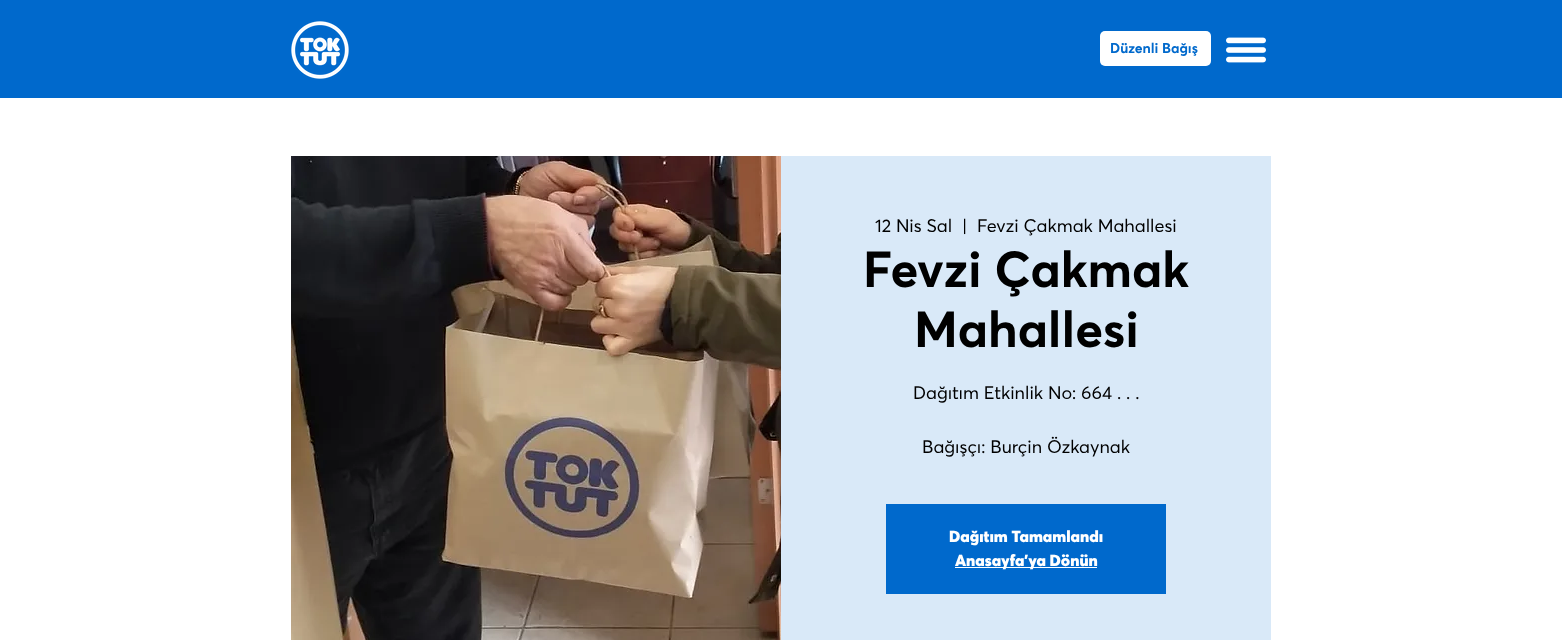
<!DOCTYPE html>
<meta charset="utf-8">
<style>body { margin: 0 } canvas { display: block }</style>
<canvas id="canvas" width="1562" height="640"></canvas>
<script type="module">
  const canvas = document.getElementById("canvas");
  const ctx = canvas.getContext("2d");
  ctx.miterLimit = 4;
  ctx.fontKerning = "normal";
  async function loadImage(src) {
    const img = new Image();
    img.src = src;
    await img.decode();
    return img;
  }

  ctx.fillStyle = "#ffffff";
  ctx.fillRect(0, 0, 1562, 640);
  ctx.fillStyle = "#0069cc";
  ctx.fillRect(0, 0, 1562, 98);
  ctx.drawImage(await loadImage("img1.png"), 291, 21, 58, 58);
  ctx.fillStyle = "#ffffff";
  ctx.beginPath();
  ctx.roundRect(1100, 31, 111, 35, 5);
  ctx.fill();
  ctx.font = "bold 14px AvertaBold";
  ctx.fillStyle = "#0069cc";
  ctx.fillText("Düzenli Bağış", 1110, 53);
  ctx.drawImage(await loadImage("img2.png"), 1226, 37, 40, 26);
  ctx.drawImage(await loadImage("img3.png"), 291, 156, 490, 484);
  ctx.fillStyle = "#d9e9f8";
  ctx.fillRect(781, 156, 490, 484);
  ctx.font = "18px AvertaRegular";
  ctx.fillStyle = "#000000";
  ctx.fillText("12 Nis Sal", 875, 232);
  ctx.fillText("|", 962, 232);
  ctx.fillText("Fevzi Çakmak Mahallesi", 977, 232);
  ctx.font = "bold 50px AvertaBold";
  ctx.fillText("Fevzi Çakmak", 863, 287);
  ctx.fillText("Mahallesi", 914, 347);
  ctx.font = "18px AvertaRegular";
  ctx.fillText("Dağıtım Etkinlik No: 664 . . .", 913, 399);
  ctx.fillText("Bağışçı: Burçin Özkaynak", 922, 453);
  ctx.fillStyle = "#0069cc";
  ctx.fillRect(886, 504, 280, 90);
  ctx.font = "900 16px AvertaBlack";
  ctx.fillStyle = "#ffffff";
  ctx.fillText("Dağıtım Tamamlandı", 949, 542);
  ctx.fillRect(955, 567, 142, 1);
  ctx.fillText("Anasayfa'ya Dönün", 955, 566);
</script>
